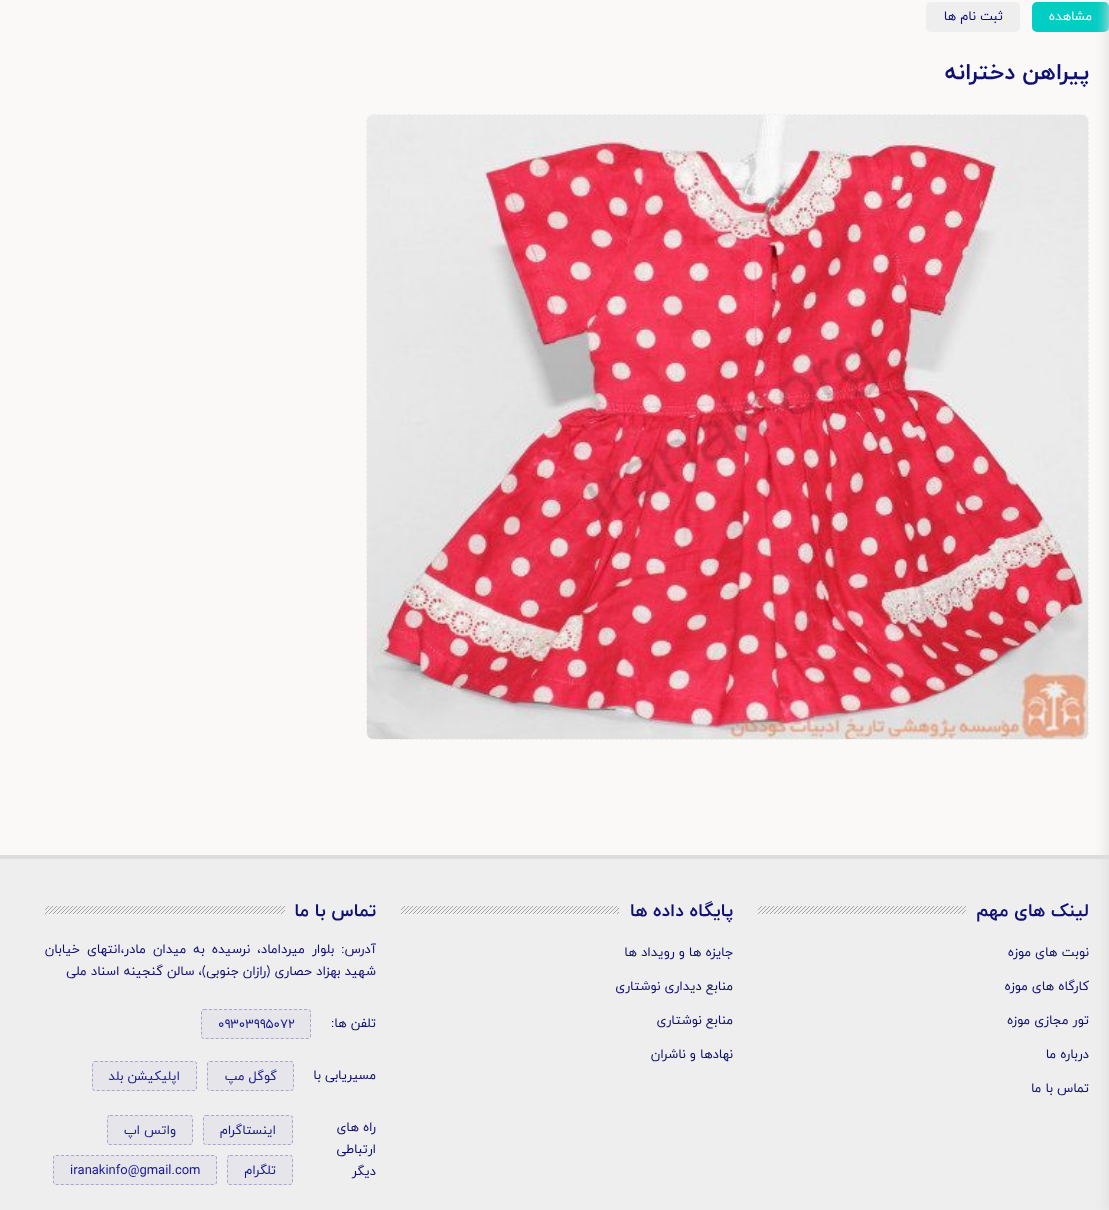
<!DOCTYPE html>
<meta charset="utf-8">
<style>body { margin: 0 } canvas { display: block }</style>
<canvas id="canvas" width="1109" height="1210"></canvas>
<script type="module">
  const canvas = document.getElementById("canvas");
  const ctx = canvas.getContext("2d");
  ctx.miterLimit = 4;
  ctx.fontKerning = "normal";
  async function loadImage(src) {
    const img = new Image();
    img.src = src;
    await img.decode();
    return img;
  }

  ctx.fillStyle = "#faf9f7";
  ctx.fillRect(0, 0, 1109, 1210);
  ctx.fillStyle = "#00cdc3";
  ctx.beginPath();
  ctx.roundRect(1032, 2, 77, 30, 5);
  ctx.fill();
  ctx.beginPath();
  ctx.moveTo(373, 114.5);
  ctx.lineTo(1082, 114.5);
  ctx.bezierCurveTo(1085.5, 114.5, 1088.5, 117.5, 1088.5, 121);
  ctx.lineTo(1088.5, 733);
  ctx.bezierCurveTo(1088.5, 736.5, 1085.5, 739.5, 1082, 739.5);
  ctx.lineTo(373, 739.5);
  ctx.bezierCurveTo(369.5, 739.5, 366.5, 736.5, 366.5, 733);
  ctx.lineTo(366.5, 121);
  ctx.bezierCurveTo(366.5, 117.5, 369.5, 114.5, 373, 114.5);
  ctx.closePath();
  ctx.strokeStyle = "#eeeeee";
  ctx.setLineDash([3, 2]);
  ctx.stroke();
  ctx.drawImage(await loadImage("img1.png"), 367, 115, 721, 624);
  ctx.fillStyle = "#eeeeee";
  ctx.fillRect(0, 859, 1109, 351);
  ctx.fillStyle = "#dddddd";
  ctx.fillRect(0, 855, 1109, 4);
  ctx.filter = "blur(7px)";
  ctx.beginPath();
  ctx.rect(1108, -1, 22, 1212);
  ctx.fill();
  ctx.filter = "none";
  ctx.direction = "rtl";
  ctx.font = "13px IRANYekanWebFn";
  ctx.fillStyle = "#ffffff";
  ctx.fillText("مشاهده", 1092, 20);
  ctx.fillStyle = "#eeeeee";
  ctx.beginPath();
  ctx.roundRect(926, 2, 94, 30, 5);
  ctx.fill();
  ctx.fillStyle = "#101074";
  ctx.fillText("ثبت نام ها", 1003, 20);
  ctx.font = "bold 23px IRANYekanWebFn";
  ctx.fillText("پیراهن دخترانه", 1089, 79);
  ctx.font = "bold 18px IRANYekanWebFn";
  ctx.fillText("لینک های مهم", 1089, 916);
  ctx.drawImage(await loadImage("img2.png"), 758, 906, 208, 8);
  ctx.font = "13px IRANYekanWebFn";
  ctx.fillText("نوبت های موزه", 1089, 956);
  ctx.fillText("کارگاه های موزه", 1089, 990);
  ctx.fillText("تور مجازی موزه", 1089, 1024);
  ctx.fillText("درباره ما", 1089, 1058);
  ctx.fillText("تماس با ما", 1089, 1092);
  ctx.font = "bold 18px IRANYekanWebFn";
  ctx.fillText("پایگاه داده ها", 733, 916);
  ctx.drawImage(await loadImage("img3.png"), 401, 906, 218, 8);
  ctx.font = "13px IRANYekanWebFn";
  ctx.fillText("جایزه ها و رویداد ها", 733, 956);
  ctx.fillText("منابع دیداری نوشتاری", 733, 990);
  ctx.fillText("منابع نوشتاری", 733, 1024);
  ctx.fillText("نهادها و ناشران", 733, 1058);
  ctx.font = "bold 18px IRANYekanWebFn";
  ctx.fillText("تماس با ما", 376, 916);
  ctx.drawImage(await loadImage("img4.png"), 45, 906, 240, 8);
  ctx.wordSpacing = "3px";
  ctx.font = "13px IRANYekanWebFn";
  ctx.fillText("آدرس: بلوار میرداماد، نرسیده به میدان مادر،انتهای خیابان", 376, 953);
  ctx.wordSpacing = "0px";
  ctx.fillText("شهید بهزاد حصاری (رازان جنوبی)، سالن گنجینه اسناد ملی", 376, 975);
  ctx.fillText("تلفن ها:", 376, 1027);
  ctx.fillStyle = "#e6e6ea";
  ctx.beginPath();
  ctx.roundRect(201, 1009, 110, 30, 3);
  ctx.fill();
  ctx.beginPath();
  ctx.moveTo(204, 1009.5);
  ctx.lineTo(308, 1009.5);
  ctx.bezierCurveTo(309.5, 1009.5, 310.5, 1010.5, 310.5, 1012);
  ctx.lineTo(310.5, 1036);
  ctx.bezierCurveTo(310.5, 1037.5, 309.5, 1038.5, 308, 1038.5);
  ctx.lineTo(204, 1038.5);
  ctx.bezierCurveTo(202.5, 1038.5, 201.5, 1037.5, 201.5, 1036);
  ctx.lineTo(201.5, 1012);
  ctx.bezierCurveTo(201.5, 1010.5, 202.5, 1009.5, 204, 1009.5);
  ctx.closePath();
  ctx.strokeStyle = "rgba(26, 26, 148, 0.31)";
  ctx.stroke();
  ctx.direction = "ltr";
  ctx.fillStyle = "#1a1a94";
  ctx.fillText("۰۹۳۰۳۹۹۵۰۷۲", 218, 1028);
  ctx.direction = "rtl";
  ctx.fillStyle = "#101074";
  ctx.fillText("مسیریابی با", 376, 1079);
  ctx.fillStyle = "#e6e6ea";
  ctx.beginPath();
  ctx.roundRect(207, 1061, 87, 30, 3);
  ctx.fill();
  ctx.beginPath();
  ctx.moveTo(210, 1061.5);
  ctx.lineTo(291, 1061.5);
  ctx.bezierCurveTo(292.5, 1061.5, 293.5, 1062.5, 293.5, 1064);
  ctx.lineTo(293.5, 1088);
  ctx.bezierCurveTo(293.5, 1089.5, 292.5, 1090.5, 291, 1090.5);
  ctx.lineTo(210, 1090.5);
  ctx.bezierCurveTo(208.5, 1090.5, 207.5, 1089.5, 207.5, 1088);
  ctx.lineTo(207.5, 1064);
  ctx.bezierCurveTo(207.5, 1062.5, 208.5, 1061.5, 210, 1061.5);
  ctx.closePath();
  ctx.stroke();
  ctx.fillStyle = "#1a1a94";
  ctx.fillText("گوگل مپ", 277, 1080);
  ctx.fillStyle = "#e6e6ea";
  ctx.beginPath();
  ctx.roundRect(92, 1061, 105, 30, 3);
  ctx.fill();
  ctx.beginPath();
  ctx.moveTo(95, 1061.5);
  ctx.lineTo(194, 1061.5);
  ctx.bezierCurveTo(195.5, 1061.5, 196.5, 1062.5, 196.5, 1064);
  ctx.lineTo(196.5, 1088);
  ctx.bezierCurveTo(196.5, 1089.5, 195.5, 1090.5, 194, 1090.5);
  ctx.lineTo(95, 1090.5);
  ctx.bezierCurveTo(93.5, 1090.5, 92.5, 1089.5, 92.5, 1088);
  ctx.lineTo(92.5, 1064);
  ctx.bezierCurveTo(92.5, 1062.5, 93.5, 1061.5, 95, 1061.5);
  ctx.closePath();
  ctx.stroke();
  ctx.fillStyle = "#1a1a94";
  ctx.fillText("اپلیکیشن بلد", 180, 1080);
  ctx.fillStyle = "#101074";
  ctx.fillText("راه های", 376, 1131);
  ctx.fillText("ارتباطی", 376, 1153);
  ctx.fillText("دیگر", 376, 1175);
  ctx.fillStyle = "#e6e6ea";
  ctx.beginPath();
  ctx.roundRect(203, 1115, 90, 30, 3);
  ctx.fill();
  ctx.beginPath();
  ctx.moveTo(206, 1115.5);
  ctx.lineTo(290, 1115.5);
  ctx.bezierCurveTo(291.5, 1115.5, 292.5, 1116.5, 292.5, 1118);
  ctx.lineTo(292.5, 1142);
  ctx.bezierCurveTo(292.5, 1143.5, 291.5, 1144.5, 290, 1144.5);
  ctx.lineTo(206, 1144.5);
  ctx.bezierCurveTo(204.5, 1144.5, 203.5, 1143.5, 203.5, 1142);
  ctx.lineTo(203.5, 1118);
  ctx.bezierCurveTo(203.5, 1116.5, 204.5, 1115.5, 206, 1115.5);
  ctx.closePath();
  ctx.stroke();
  ctx.fillStyle = "#1a1a94";
  ctx.fillText("اینستاگرام", 276, 1134);
  ctx.fillStyle = "#e6e6ea";
  ctx.beginPath();
  ctx.roundRect(107, 1115, 86, 30, 3);
  ctx.fill();
  ctx.beginPath();
  ctx.moveTo(110, 1115.5);
  ctx.lineTo(190, 1115.5);
  ctx.bezierCurveTo(191.5, 1115.5, 192.5, 1116.5, 192.5, 1118);
  ctx.lineTo(192.5, 1142);
  ctx.bezierCurveTo(192.5, 1143.5, 191.5, 1144.5, 190, 1144.5);
  ctx.lineTo(110, 1144.5);
  ctx.bezierCurveTo(108.5, 1144.5, 107.5, 1143.5, 107.5, 1142);
  ctx.lineTo(107.5, 1118);
  ctx.bezierCurveTo(107.5, 1116.5, 108.5, 1115.5, 110, 1115.5);
  ctx.closePath();
  ctx.stroke();
  ctx.fillStyle = "#1a1a94";
  ctx.fillText("واتس اپ", 176, 1134);
  ctx.fillStyle = "#e6e6ea";
  ctx.beginPath();
  ctx.roundRect(227, 1155, 66, 30, 3);
  ctx.fill();
  ctx.beginPath();
  ctx.moveTo(230, 1155.5);
  ctx.lineTo(290, 1155.5);
  ctx.bezierCurveTo(291.5, 1155.5, 292.5, 1156.5, 292.5, 1158);
  ctx.lineTo(292.5, 1182);
  ctx.bezierCurveTo(292.5, 1183.5, 291.5, 1184.5, 290, 1184.5);
  ctx.lineTo(230, 1184.5);
  ctx.bezierCurveTo(228.5, 1184.5, 227.5, 1183.5, 227.5, 1182);
  ctx.lineTo(227.5, 1158);
  ctx.bezierCurveTo(227.5, 1156.5, 228.5, 1155.5, 230, 1155.5);
  ctx.closePath();
  ctx.stroke();
  ctx.fillStyle = "#1a1a94";
  ctx.fillText("تلگرام", 276, 1174);
  ctx.fillStyle = "#e6e6ea";
  ctx.beginPath();
  ctx.roundRect(53, 1155, 164, 30, 3);
  ctx.fill();
  ctx.beginPath();
  ctx.moveTo(56, 1155.5);
  ctx.lineTo(214, 1155.5);
  ctx.bezierCurveTo(215.5, 1155.5, 216.5, 1156.5, 216.5, 1158);
  ctx.lineTo(216.5, 1182);
  ctx.bezierCurveTo(216.5, 1183.5, 215.5, 1184.5, 214, 1184.5);
  ctx.lineTo(56, 1184.5);
  ctx.bezierCurveTo(54.5, 1184.5, 53.5, 1183.5, 53.5, 1182);
  ctx.lineTo(53.5, 1158);
  ctx.bezierCurveTo(53.5, 1156.5, 54.5, 1155.5, 56, 1155.5);
  ctx.closePath();
  ctx.stroke();
  ctx.direction = "ltr";
  ctx.fillStyle = "#1a1a94";
  ctx.fillText("iranakinfo@gmail.com", 70, 1174);
</script>
